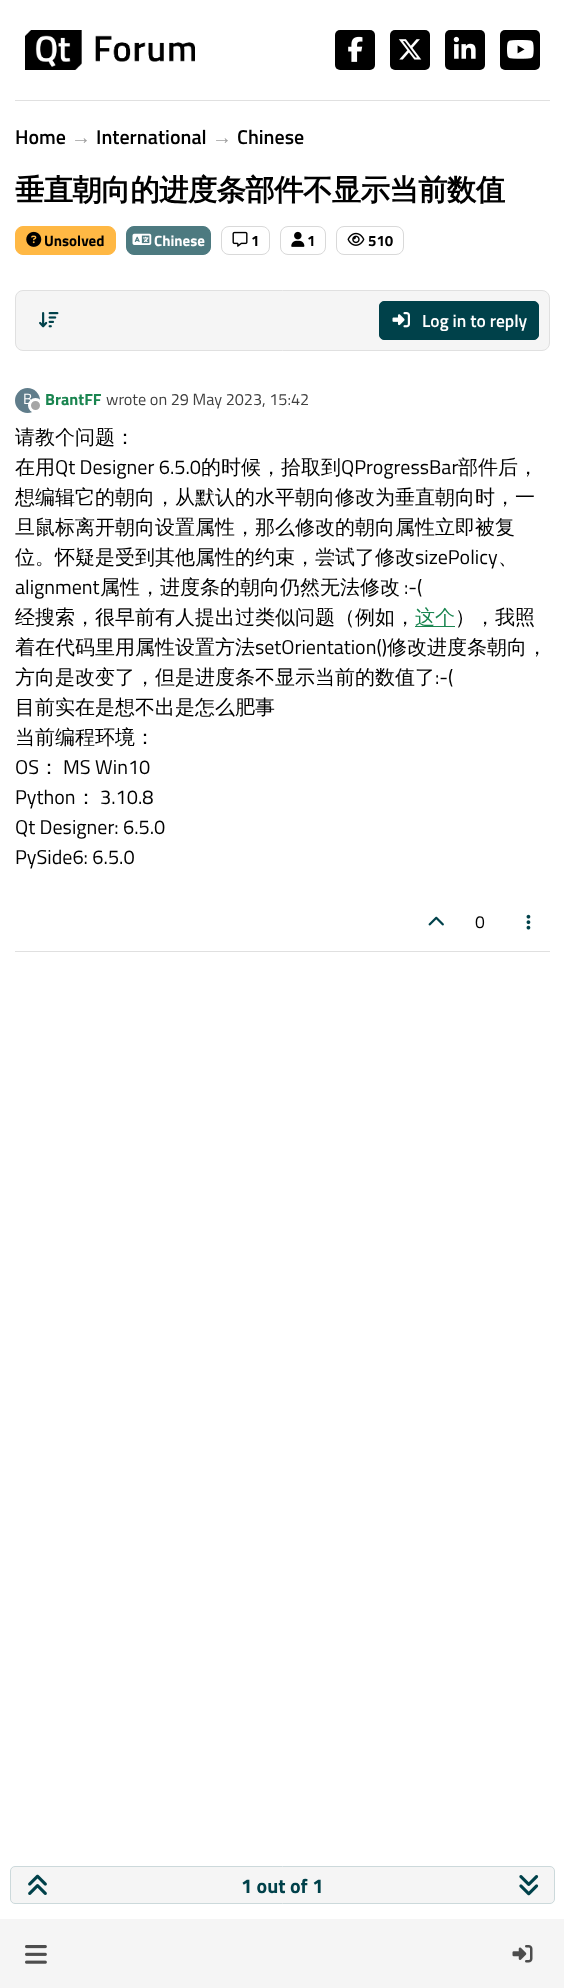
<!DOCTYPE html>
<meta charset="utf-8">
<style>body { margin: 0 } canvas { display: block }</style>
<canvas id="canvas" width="564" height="1988"></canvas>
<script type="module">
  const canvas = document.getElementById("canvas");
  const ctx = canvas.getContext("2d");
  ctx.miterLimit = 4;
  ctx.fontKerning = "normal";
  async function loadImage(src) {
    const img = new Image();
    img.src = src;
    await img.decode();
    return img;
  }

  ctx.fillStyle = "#ffffff";
  ctx.fillRect(0, 0, 564, 1988);
  ctx.fillStyle = "#e0e0e0";
  ctx.fillRect(15, 100, 535, 1);
  ctx.drawImage(await loadImage("img1.png"), 25, 30, 170, 40);
  ctx.fillStyle = "#000000";
  ctx.beginPath();
  ctx.roundRect(335, 30, 40, 40, 5);
  ctx.fill();
  ctx.drawImage(await loadImage("img2.png"), 348, 36, 15, 26);
  ctx.beginPath();
  ctx.roundRect(390, 30, 40, 40, 5);
  ctx.fill();
  ctx.drawImage(await loadImage("img3.png"), 398, 39, 24, 21);
  ctx.beginPath();
  ctx.roundRect(445, 30, 40, 40, 5);
  ctx.fill();
  ctx.drawImage(await loadImage("img4.png"), 453, 36, 23, 23);
  ctx.beginPath();
  ctx.roundRect(500, 30, 40, 40, 5);
  ctx.fill();
  ctx.drawImage(await loadImage("img5.png"), 507, 40, 27, 19);
  ctx.font = "600 20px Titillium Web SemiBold";
  ctx.fillText("Home", 15, 144);
  ctx.font = "bold 20px Liberation Sans";
  ctx.fillStyle = "#9e9e9e";
  ctx.fillText("→", 71, 144);
  ctx.font = "600 20px Titillium Web SemiBold";
  ctx.fillStyle = "#000000";
  ctx.fillText("International", 96, 144);
  ctx.font = "bold 20px Liberation Sans";
  ctx.fillStyle = "#9e9e9e";
  ctx.fillText("→", 212, 144);
  ctx.font = "600 20px Titillium Web SemiBold";
  ctx.fillStyle = "#000000";
  ctx.fillText("Chinese", 237, 144);
  ctx.letterSpacing = "-0.6px";
  ctx.font = "bold 29.4px WenQuanYi Zen Hei";
  ctx.fillText("垂直朝向的进度条部件不显示当前数值", 15, 200);
  ctx.fillStyle = "#ffb844";
  ctx.beginPath();
  ctx.roundRect(15.5, 226.5, 100, 28, 7.5);
  ctx.fill();
  ctx.strokeStyle = "#ffb844";
  ctx.stroke();
  ctx.drawImage(await loadImage("img6.png"), 26, 231, 16, 16);
  ctx.letterSpacing = "0px";
  ctx.font = "bold 15px Titillium Web";
  ctx.fillStyle = "#000000";
  ctx.fillText("Unsolved", 44, 246);
  ctx.fillStyle = "#4d7a80";
  ctx.beginPath();
  ctx.roundRect(126.5, 226.5, 84, 28, 7.5);
  ctx.fill();
  ctx.strokeStyle = "#4d7a80";
  ctx.stroke();
  ctx.drawImage(await loadImage("img7.png"), 132, 233, 20, 12);
  ctx.fillStyle = "#ffffff";
  ctx.fillText("Chinese", 154, 246);
  ctx.beginPath();
  ctx.roundRect(221.5, 226.5, 48, 28, 7.5);
  ctx.strokeStyle = "#d9d9d9";
  ctx.stroke();
  ctx.drawImage(await loadImage("img8.png"), 232, 231, 16, 16);
  ctx.fillStyle = "#000000";
  ctx.fillText("1", 251, 246);
  ctx.beginPath();
  ctx.roundRect(280.5, 226.5, 45, 28, 7.5);
  ctx.stroke();
  ctx.drawImage(await loadImage("img9.png"), 291, 231, 14, 16);
  ctx.fillText("1", 307, 246);
  ctx.beginPath();
  ctx.roundRect(336.5, 226.5, 67, 28, 7.5);
  ctx.stroke();
  ctx.drawImage(await loadImage("img10.png"), 347, 232, 18, 14);
  ctx.fillText("510", 368, 246);
  ctx.fillStyle = "#f5f5f5";
  ctx.beginPath();
  ctx.roundRect(15.5, 290.5, 534, 60, 7.5);
  ctx.fill();
  ctx.strokeStyle = "#e0e0e0";
  ctx.stroke();
  ctx.drawImage(await loadImage("img11.png"), 39, 312, 20, 16);
  ctx.fillStyle = "#00414a";
  ctx.beginPath();
  ctx.roundRect(379.5, 301.5, 159, 38, 4.5);
  ctx.fill();
  ctx.strokeStyle = "#00414a";
  ctx.stroke();
  ctx.drawImage(await loadImage("img12.png"), 392, 312, 18, 16);
  ctx.font = "600 17.5px Titillium Web SemiBold";
  ctx.fillStyle = "#ffffff";
  ctx.fillText("Log in to reply", 422, 327);
  ctx.fillStyle = "#607d8b";
  ctx.beginPath();
  ctx.arc(27.5, 400.5, 12.5, 0, Math.PI * 2);
  ctx.fill();
  ctx.font = "15px Titillium Web";
  ctx.fillStyle = "#ffffff";
  ctx.fillText("B", 23, 404);
  ctx.fillStyle = "#a6a6a6";
  ctx.beginPath();
  ctx.arc(35.5, 405.5, 6, 0, Math.PI * 2);
  ctx.fill();
  ctx.strokeStyle = "#ffffff";
  ctx.lineWidth = 3;
  ctx.stroke();
  ctx.font = "bold 16.25px Titillium Web";
  ctx.fillStyle = "#1a8550";
  ctx.fillText("BrantFF", 45, 405);
  ctx.font = "16.25px Titillium Web";
  ctx.fillStyle = "#404040";
  ctx.fillText("wrote on 29 May 2023, 15:42", 106, 405);
  ctx.font = "500 20px WenQuanYi Zen Hei";
  ctx.fillStyle = "#000000";
  ctx.fillText("请教个问题：", 15, 444);
  ctx.fillText("在用", 15, 474);
  ctx.font = "20px Titillium Web";
  ctx.fillText("Qt Designer 6.5.0", 55, 474);
  ctx.font = "500 20px WenQuanYi Zen Hei";
  ctx.fillText("的时候，拾取到", 201, 474);
  ctx.font = "20px Titillium Web";
  ctx.fillText("QProgressBar", 341, 474);
  ctx.font = "500 20px WenQuanYi Zen Hei";
  ctx.fillText("部件后，", 458, 474);
  ctx.fillText("想编辑它的朝向，从默认的水平朝向修改为垂直朝向时，一", 15, 504);
  ctx.fillText("旦鼠标离开朝向设置属性，那么修改的朝向属性立即被复", 15, 534);
  ctx.fillText("位。怀疑是受到其他属性的约束，尝试了修改", 15, 564);
  ctx.font = "20px Titillium Web";
  ctx.fillText("sizePolicy", 415, 564);
  ctx.font = "500 20px WenQuanYi Zen Hei";
  ctx.fillText("、", 498, 564);
  ctx.font = "20px Titillium Web";
  ctx.fillText("alignment", 15, 594);
  ctx.font = "500 20px WenQuanYi Zen Hei";
  ctx.fillText("属性，进度条的朝向仍然无法修改", 100, 594);
  ctx.font = "20px Titillium Web";
  ctx.fillText(":-(", 404, 594);
  ctx.font = "500 20px WenQuanYi Zen Hei";
  ctx.fillText("经搜索，很早前有人提出过类似问题（例如，", 15, 624);
  ctx.fillStyle = "#1a8550";
  ctx.fillRect(415, 626, 40, 1);
  ctx.fillText("这个", 415, 624);
  ctx.fillStyle = "#000000";
  ctx.fillText("），我照", 455, 624);
  ctx.fillText("着在代码里用属性设置方法", 15, 654);
  ctx.font = "20px Titillium Web";
  ctx.fillText("setOrientation()", 255, 654);
  ctx.font = "500 20px WenQuanYi Zen Hei";
  ctx.fillText("修改进度条朝向，", 387, 654);
  ctx.fillText("方向是改变了，但是进度条不显示当前的数值了", 15, 684);
  ctx.font = "20px Titillium Web";
  ctx.fillText(":-(", 435, 684);
  ctx.font = "500 20px WenQuanYi Zen Hei";
  ctx.fillText("目前实在是想不出是怎么肥事", 15, 714);
  ctx.fillText("当前编程环境：", 15, 744);
  ctx.font = "20px Titillium Web";
  ctx.fillText("OS", 15, 774);
  ctx.font = "500 20px WenQuanYi Zen Hei";
  ctx.fillText("：", 39, 774);
  ctx.font = "20px Titillium Web";
  ctx.fillText("MS Win10", 63, 774);
  ctx.fillText("Python", 15, 804);
  ctx.font = "500 20px WenQuanYi Zen Hei";
  ctx.fillText("：", 76, 804);
  ctx.font = "20px Titillium Web";
  ctx.fillText("3.10.8", 100, 804);
  ctx.fillText("Qt Designer: 6.5.0", 15, 834);
  ctx.fillText("PySide6: 6.5.0", 15, 864);
  ctx.fillStyle = "#e0e0e0";
  ctx.fillRect(15, 951, 535, 1);
  ctx.drawImage(await loadImage("img13.png"), 428, 916, 16, 10);
  ctx.font = "17.5px Titillium Web";
  ctx.fillStyle = "#000000";
  ctx.fillText("0", 475, 928);
  ctx.drawImage(await loadImage("img14.png"), 526, 914, 5, 16);
  ctx.fillStyle = "#f5f5f5";
  ctx.beginPath();
  ctx.roundRect(10.5, 1866.5, 544, 37, 4.5);
  ctx.fill();
  ctx.strokeStyle = "#ccd9db";
  ctx.lineWidth = 1;
  ctx.stroke();
  ctx.drawImage(await loadImage("img15.png"), 28, 1874, 19, 21);
  ctx.font = "bold 20px Titillium Web";
  ctx.fillStyle = "#00414a";
  ctx.fillText("1 out of 1", 241, 1893);
  ctx.drawImage(await loadImage("img16.png"), 519, 1875, 20, 21);
  ctx.fillStyle = "#f5f5f5";
  ctx.fillRect(0, 1919, 564, 69);
  ctx.drawImage(await loadImage("img17.png"), 25, 1945, 22, 19);
  ctx.drawImage(await loadImage("img18.png"), 512, 1945, 21, 18);
</script>
